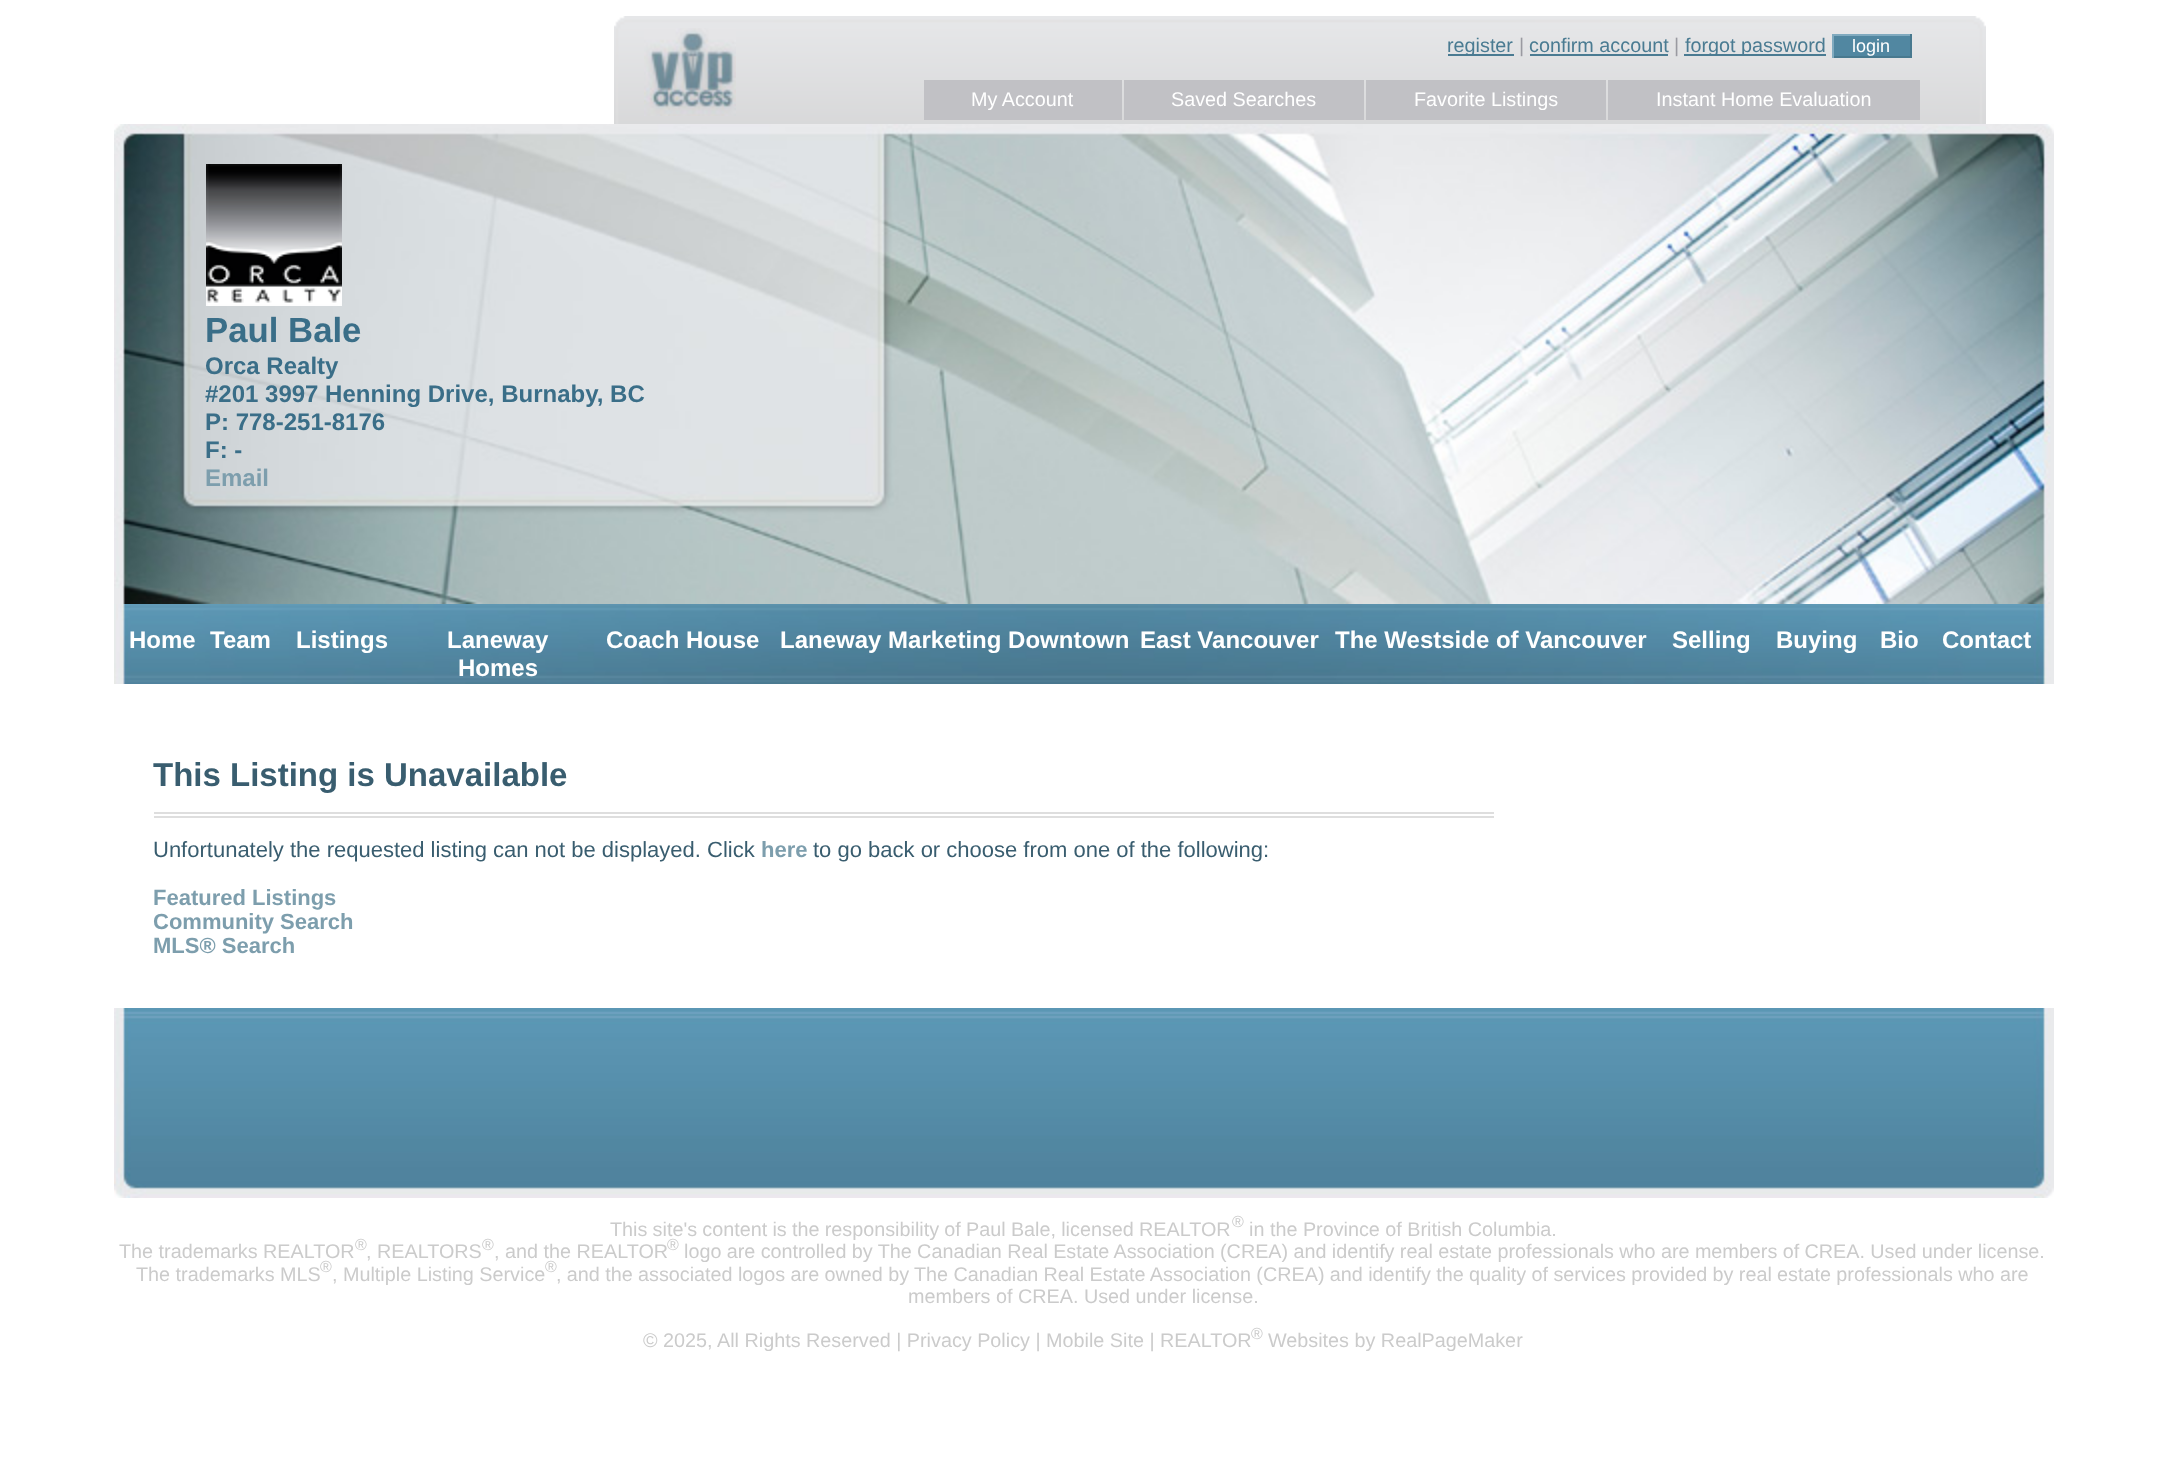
<!DOCTYPE html>
<meta charset="utf-8">
<style>body { margin: 0 } canvas { display: block }</style>
<canvas id="canvas" width="2166" height="1483"></canvas>
<script type="module">
  const canvas = document.getElementById("canvas");
  const ctx = canvas.getContext("2d");
  ctx.miterLimit = 4;
  ctx.fontKerning = "normal";
  async function loadImage(src) {
    const img = new Image();
    img.src = src;
    await img.decode();
    return img;
  }

  ctx.fillStyle = "#ffffff";
  ctx.fillRect(0, 0, 2166, 1483);
  ctx.drawImage(await loadImage("img1.png"), 614, 16, 1372, 108);
  ctx.drawImage(await loadImage("img2.png"), 644, 28, 92, 88);
  ctx.fillStyle = "#4a7b92";
  ctx.fillRect(1448, 54, 66, 2);
  ctx.font = "19.8px Liberation Sans";
  ctx.fillText("register", 1447, 52);
  ctx.fillStyle = "#9a9aa1";
  ctx.fillText("|", 1519, 52);
  ctx.fillStyle = "#4a7b92";
  ctx.fillText("confirm account", 1529, 52);
  ctx.fillRect(1530, 54, 138, 2);
  ctx.fillStyle = "#9a9aa1";
  ctx.fillText("|", 1674, 52);
  ctx.fillStyle = "#4a7b92";
  ctx.fillRect(1684, 54, 142, 2);
  ctx.fillText("forgot password", 1685, 52);
  ctx.fillStyle = "#5187a1";
  ctx.fillRect(1834, 36, 76, 20);
  ctx.fillStyle = "#80aabf";
  ctx.fillRect(1832, 34, 80, 2);
  ctx.fillStyle = "#48798f";
  ctx.fillRect(1910, 34, 2, 24);
  ctx.fillRect(1832, 56, 80, 2);
  ctx.fillStyle = "#80aabf";
  ctx.fillRect(1832, 34, 2, 24);
  ctx.font = "18px Liberation Sans";
  ctx.fillStyle = "#ffffff";
  ctx.fillText("login", 1852, 52);
  ctx.fillStyle = "#c1c1c5";
  ctx.fillRect(924, 80, 198, 40);
  ctx.font = "19.8px Liberation Sans";
  ctx.fillStyle = "#ffffff";
  ctx.fillText("My Account", 971, 106);
  ctx.fillStyle = "#c1c1c5";
  ctx.fillRect(1124, 80, 240, 40);
  ctx.fillStyle = "#ffffff";
  ctx.fillText("Saved Searches", 1171, 106);
  ctx.fillStyle = "#c1c1c5";
  ctx.fillRect(1366, 80, 240, 40);
  ctx.fillStyle = "#ffffff";
  ctx.fillText("Favorite Listings", 1414, 106);
  ctx.fillStyle = "#c1c1c5";
  ctx.fillRect(1608, 80, 312, 40);
  ctx.fillStyle = "#ffffff";
  ctx.fillText("Instant Home Evaluation", 1656, 106);
  ctx.drawImage(await loadImage("img3.png"), 114, 124, 1940, 480);
  ctx.drawImage(await loadImage("img4.png"), 206, 164, 136, 142);
  ctx.font = "bold 34.75px Liberation Sans";
  ctx.fillStyle = "#3a6e88";
  ctx.fillText("Paul Bale", 205, 342);
  ctx.font = "bold 24px Liberation Sans";
  ctx.fillText("Orca Realty", 205, 374);
  ctx.fillText("#201 3997 Henning Drive, Burnaby, BC", 205, 402);
  ctx.fillText("P: 778-251-8176", 205, 430);
  ctx.fillText("F: -", 205, 458);
  ctx.fillStyle = "#7d9ead";
  ctx.fillText("Email", 205, 486);
  ctx.drawImage(await loadImage("img5.png"), 114, 604, 1940, 80);
  ctx.fillStyle = "#ffffff";
  ctx.fillText("Home", 129, 648);
  ctx.fillText("Team", 210, 648);
  ctx.fillText("Listings", 296, 648);
  ctx.fillText("Laneway", 447, 648);
  ctx.fillText("Homes", 458, 676);
  ctx.fillText("Coach House", 606, 648);
  ctx.fillText("Laneway Marketing Downtown", 780, 648);
  ctx.fillText("East Vancouver", 1140, 648);
  ctx.fillText("The Westside of Vancouver", 1335, 648);
  ctx.fillText("Selling", 1672, 648);
  ctx.fillText("Buying", 1776, 648);
  ctx.fillText("Bio", 1880, 648);
  ctx.fillText("Contact", 1942, 648);
  ctx.font = "bold 33px Liberation Sans";
  ctx.fillStyle = "#395d6f";
  ctx.fillText("This Listing is Unavailable", 153, 786);
  ctx.fillStyle = "#dedede";
  ctx.fillRect(154, 812, 1340, 2);
  ctx.fillRect(154, 816, 1340, 2);
  ctx.font = "22px Liberation Sans";
  ctx.fillStyle = "#395d6f";
  ctx.fillText("Unfortunately the requested listing can not be displayed. Click", 153, 857);
  ctx.font = "bold 22px Liberation Sans";
  ctx.fillStyle = "#7d9ead";
  ctx.fillText("here", 761, 857);
  ctx.font = "22px Liberation Sans";
  ctx.fillStyle = "#395d6f";
  ctx.fillText("to go back or choose from one of the following:", 813, 857);
  ctx.font = "bold 22px Liberation Sans";
  ctx.fillStyle = "#7d9ead";
  ctx.fillText("Featured Listings", 153, 905);
  ctx.fillText("Community Search", 153, 929);
  ctx.fillText("MLS® Search", 153, 953);
  ctx.drawImage(await loadImage("img6.png"), 114, 1008, 1940, 190);
  ctx.wordSpacing = "-0.25px";
  ctx.font = "19.8px Liberation Sans";
  ctx.fillStyle = "#cbcbcb";
  ctx.fillText("This site's content is the responsibility of Paul Bale, licensed REALTOR", 610, 1236);
  ctx.wordSpacing = "0px";
  ctx.font = "16px Liberation Sans";
  ctx.fillText("®", 1232, 1227);
  ctx.font = "19.8px Liberation Sans";
  ctx.fillText("in the Province of British Columbia.", 1249, 1236);
  ctx.fillText("The trademarks REALTOR", 119, 1258);
  ctx.font = "16px Liberation Sans";
  ctx.fillText("®", 355, 1250);
  ctx.font = "19.8px Liberation Sans";
  ctx.fillText(", REALTORS", 366, 1258);
  ctx.font = "16px Liberation Sans";
  ctx.fillText("®", 482, 1250);
  ctx.font = "19.8px Liberation Sans";
  ctx.fillText(", and the REALTOR", 494, 1258);
  ctx.font = "16px Liberation Sans";
  ctx.fillText("®", 667, 1250);
  ctx.wordSpacing = "-0.15px";
  ctx.font = "19.8px Liberation Sans";
  ctx.fillText("logo are controlled by The Canadian Real Estate Association (CREA) and identify real estate professionals who are members of CREA. Used under license.", 684, 1258);
  ctx.wordSpacing = "0px";
  ctx.fillText("The trademarks MLS", 136, 1281);
  ctx.font = "16px Liberation Sans";
  ctx.fillText("®", 320, 1272);
  ctx.font = "19.8px Liberation Sans";
  ctx.fillText(", Multiple Listing Service", 332, 1281);
  ctx.font = "16px Liberation Sans";
  ctx.fillText("®", 545, 1272);
  ctx.wordSpacing = "-0.15px";
  ctx.font = "19.8px Liberation Sans";
  ctx.fillText(", and the associated logos are owned by The Canadian Real Estate Association (CREA) and identify the quality of services provided by real estate professionals who are", 556, 1281);
  ctx.wordSpacing = "0px";
  ctx.fillText("members of CREA. Used under license.", 908, 1303);
  ctx.fillText("© 2025, All Rights Reserved | Privacy Policy | Mobile Site | REALTOR", 643, 1347);
  ctx.font = "16px Liberation Sans";
  ctx.fillText("®", 1251, 1339);
  ctx.font = "19.8px Liberation Sans";
  ctx.fillText("Websites by RealPageMaker", 1268, 1347);
</script>
